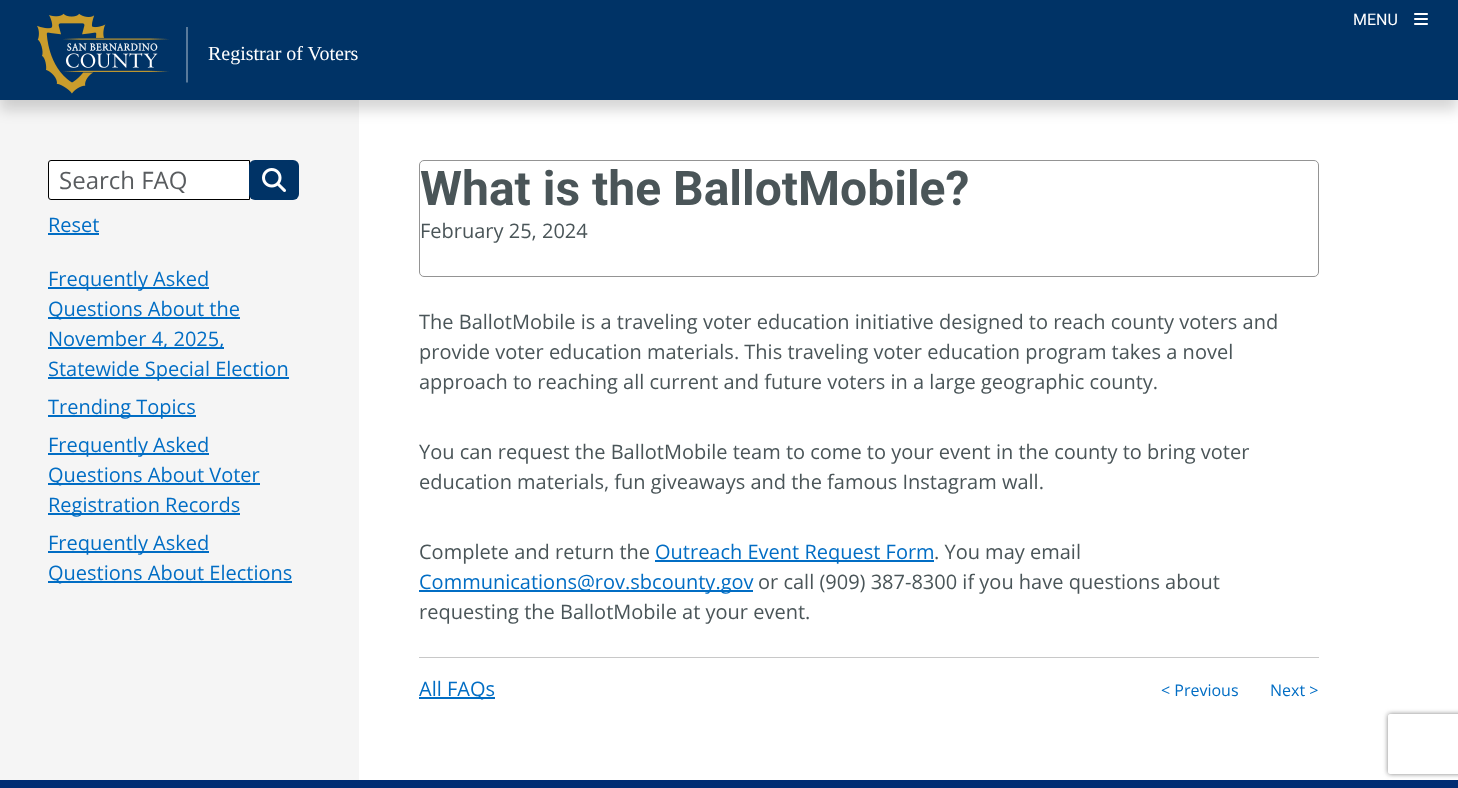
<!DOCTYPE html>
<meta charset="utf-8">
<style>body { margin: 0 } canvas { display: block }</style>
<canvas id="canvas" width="1458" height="788"></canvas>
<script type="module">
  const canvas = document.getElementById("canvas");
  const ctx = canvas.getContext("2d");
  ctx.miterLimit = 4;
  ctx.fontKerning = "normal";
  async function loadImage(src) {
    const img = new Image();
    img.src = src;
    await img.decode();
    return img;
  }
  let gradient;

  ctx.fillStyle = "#ffffff";
  ctx.fillRect(0, 0, 1458, 788);
  ctx.fillStyle = "#f5f5f5";
  ctx.fillRect(0, 100, 359, 680);
  ctx.fillStyle = "rgba(0, 0, 0, 0.16)";
  ctx.filter = "blur(7px)";
  ctx.beginPath();
  ctx.rect(0, 10, 1458, 100);
  ctx.fill();
  ctx.filter = "none";
  ctx.fillStyle = "#003366";
  ctx.fillRect(0, 0, 1458, 100);
  ctx.font = "16px Roboto";
  ctx.fillStyle = "#ffffff";
  ctx.fillText("MENU", 1353, 25);
  ctx.drawImage(await loadImage("img1.png"), 1414, 13, 14, 12);
  ctx.drawImage(await loadImage("img2.png"), 37, 13, 132, 81);
  ctx.beginPath();
  ctx.moveTo(187, 82.5);
  ctx.lineTo(187, 27);
  ctx.strokeStyle = "#ffffff";
  ctx.lineWidth = 0.7;
  ctx.stroke();
  ctx.font = "20px Liberation Serif";
  ctx.fillText("Registrar of Voters", 208, 60);
  ctx.beginPath();
  ctx.roundRect(48.5, 160.5, 201, 39, [2.5, 0, 0, 2.5]);
  ctx.fill();
  ctx.strokeStyle = "#000000";
  ctx.lineWidth = 1;
  ctx.stroke();
  ctx.font = "24px Open Sans";
  ctx.fillStyle = "#595c5f";
  ctx.fillText("Search FAQ", 59, 189);
  ctx.fillStyle = "#003366";
  ctx.beginPath();
  ctx.roundRect(249, 160, 50, 40, 6);
  ctx.fill();
  ctx.drawImage(await loadImage("img3.png"), 262, 168, 24, 24);
  ctx.font = "20px Open Sans";
  ctx.fillStyle = "#016dc4";
  ctx.fillText("Reset", 48, 232);
  ctx.fillRect(48, 233, 51, 2);
  ctx.fillRect(48, 287, 161, 2);
  ctx.fillText("Frequently Asked", 48, 286);
  ctx.fillRect(48, 317, 192, 2);
  ctx.fillText("Questions About the", 48, 316);
  ctx.fillRect(48, 347, 176, 2);
  ctx.fillText("November 4, 2025,", 48, 346);
  ctx.fillRect(48, 377, 241, 2);
  ctx.fillText("Statewide Special Election", 48, 376);
  ctx.fillRect(48, 415, 148, 2);
  ctx.fillText("Trending Topics", 48, 414);
  ctx.fillRect(48, 453, 161, 2);
  ctx.fillText("Frequently Asked", 48, 452);
  ctx.fillRect(48, 483, 212, 2);
  ctx.fillText("Questions About Voter", 48, 482);
  ctx.fillRect(48, 513, 192, 2);
  ctx.fillText("Registration Records", 48, 512);
  ctx.fillRect(48, 551, 161, 2);
  ctx.fillText("Frequently Asked", 48, 550);
  ctx.fillRect(48, 581, 244, 2);
  ctx.fillText("Questions About Elections", 48, 580);
  ctx.beginPath();
  ctx.roundRect(419.5, 160.5, 899, 116, 4.5);
  ctx.strokeStyle = "#949494";
  ctx.stroke();
  ctx.font = "bold 48px Roboto";
  ctx.fillStyle = "#4a5558";
  ctx.fillText("What is the BallotMobile?", 420, 205);
  ctx.font = "20px Open Sans";
  ctx.fillText("February 25, 2024", 420, 238);
  ctx.fillText("The BallotMobile is a traveling voter education initiative designed to reach county voters and", 419, 329);
  ctx.fillText("provide voter education materials. This traveling voter education program takes a novel", 419, 359);
  ctx.fillText("approach to reaching all current and future voters in a large geographic county.", 419, 389);
  ctx.fillText("You can request the BallotMobile team to come to your event in the county to bring voter", 419, 459);
  ctx.fillText("education materials, fun giveaways and the famous Instagram wall.", 419, 489);
  ctx.fillText("Complete and return the", 419, 559);
  ctx.fillStyle = "#016dc4";
  ctx.fillRect(655, 560, 279, 2);
  ctx.fillText("Outreach Event Request Form", 655, 559);
  ctx.fillStyle = "#4a5558";
  ctx.fillText(". You may email", 934, 559);
  ctx.fillStyle = "#016dc4";
  ctx.fillRect(419, 590, 334, 2);
  ctx.fillText("Communications@rov.sbcounty.gov", 419, 589);
  ctx.fillStyle = "#4a5558";
  ctx.fillText("or call (909) 387-8300 if you have questions about", 758, 589);
  ctx.fillText("requesting the BallotMobile at your event.", 419, 619);
  ctx.fillStyle = "#c8c8c8";
  ctx.fillRect(419, 657, 900, 1);
  ctx.fillStyle = "#016dc4";
  ctx.fillRect(419, 697, 76, 2);
  ctx.fillText("All FAQs", 419, 696);
  ctx.font = "16px Open Sans";
  ctx.fillText("< Previous", 1161, 696);
  ctx.fillText("Next >", 1270, 696);
  gradient = ctx.createLinearGradient(729, 780, 729, 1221);
  gradient.addColorStop(0, "#002d73");
  gradient.addColorStop(1, "#00173a");
  ctx.fillStyle = gradient;
  ctx.fillRect(0, 780, 1458, 8);
  ctx.save();
  ctx.beginPath();
  ctx.moveTo(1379, 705);
  ctx.lineTo(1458, 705);
  ctx.lineTo(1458, 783);
  ctx.lineTo(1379, 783);
  ctx.closePath();
  ctx.moveTo(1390, 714);
  ctx.lineTo(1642, 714);
  ctx.bezierCurveTo(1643, 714, 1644, 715, 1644, 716);
  ctx.lineTo(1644, 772);
  ctx.bezierCurveTo(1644, 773, 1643, 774, 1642, 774);
  ctx.lineTo(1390, 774);
  ctx.bezierCurveTo(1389, 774, 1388, 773, 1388, 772);
  ctx.lineTo(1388, 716);
  ctx.bezierCurveTo(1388, 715, 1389, 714, 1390, 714);
  ctx.closePath();
  ctx.clip("evenodd");
  ctx.fillStyle = "#808080";
  ctx.filter = "blur(2.5px)";
  ctx.beginPath();
  ctx.roundRect(1388, 714, 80, 60, 2);
  ctx.fill();
  ctx.filter = "none";
  ctx.restore();
</script>
